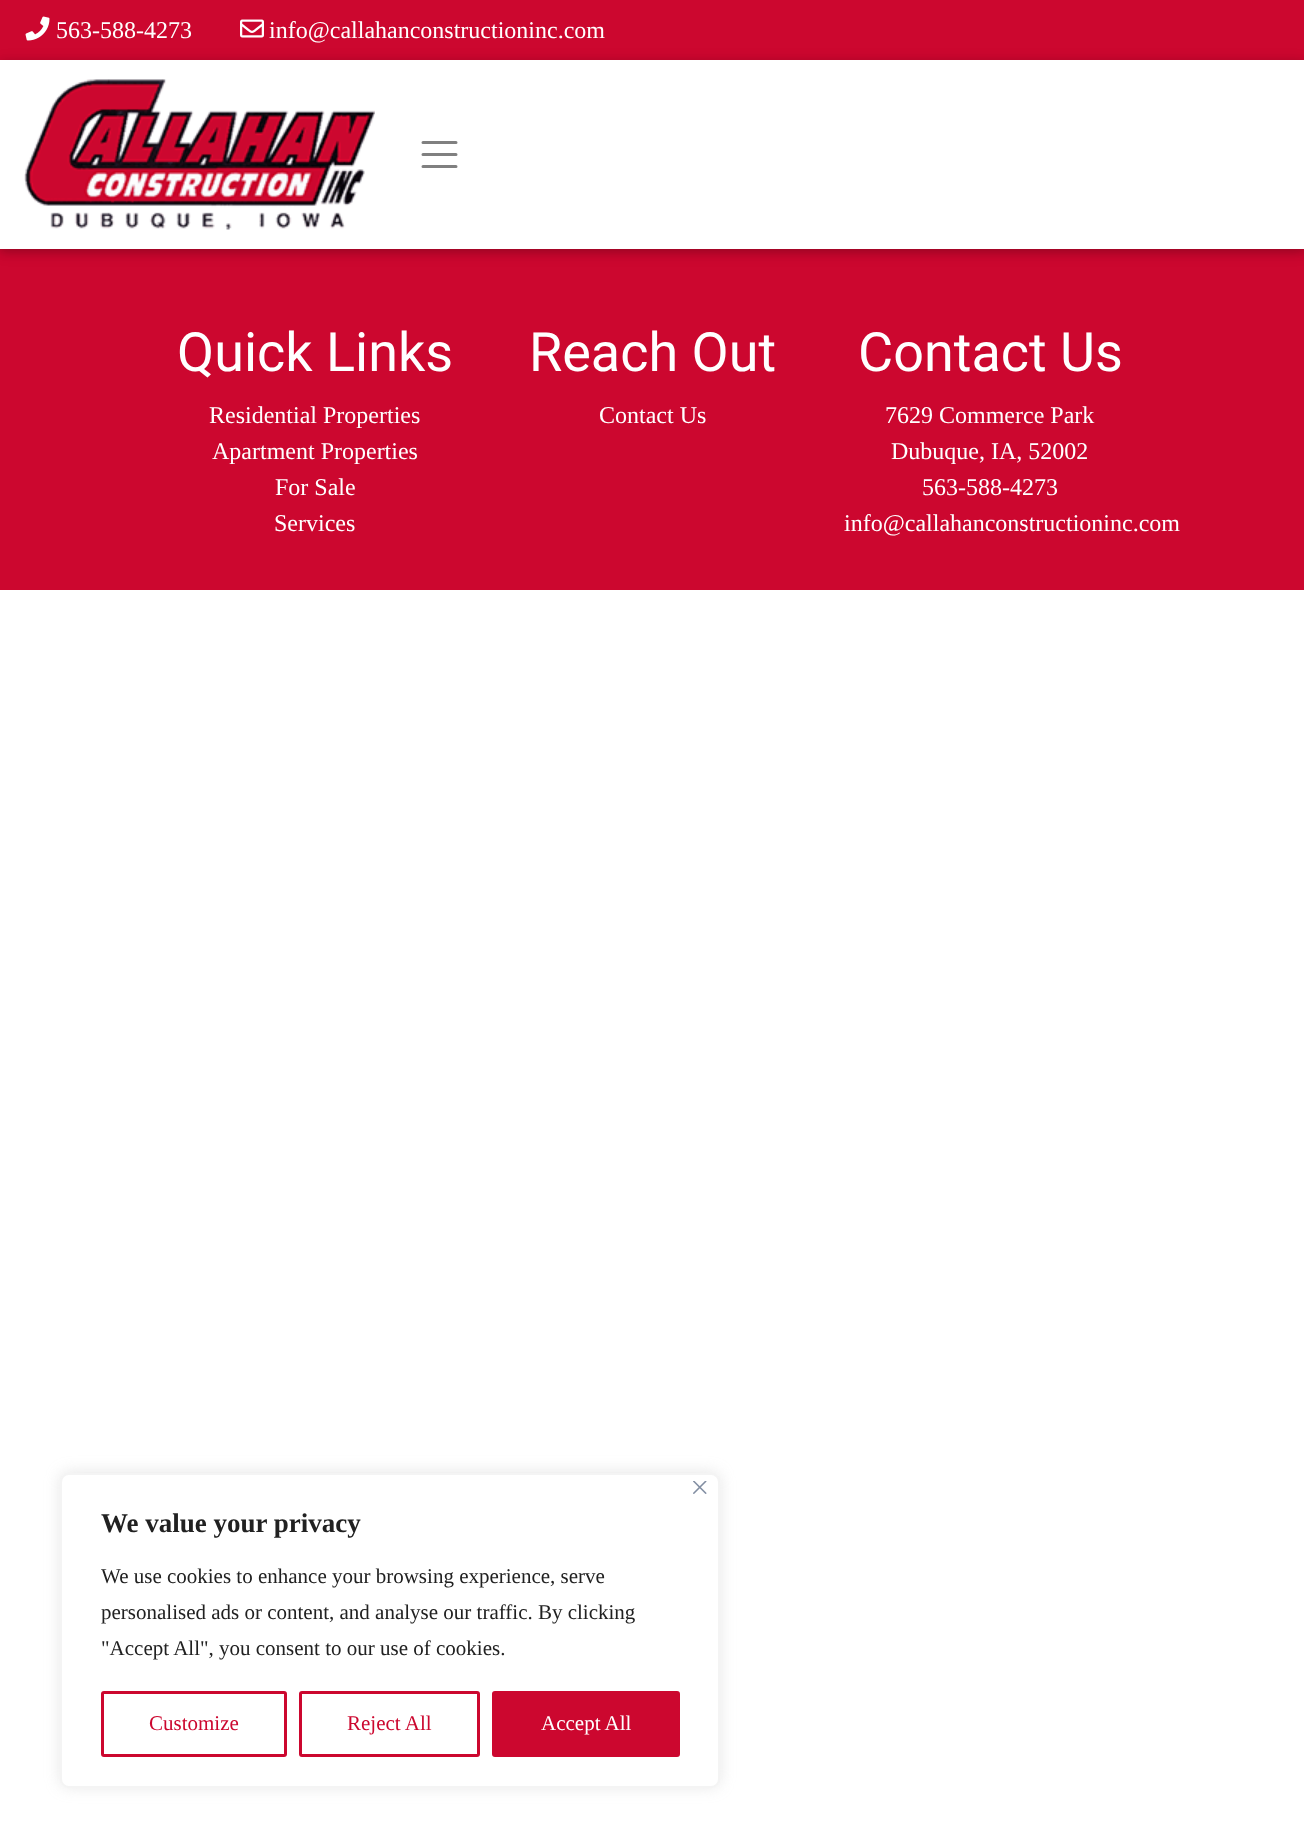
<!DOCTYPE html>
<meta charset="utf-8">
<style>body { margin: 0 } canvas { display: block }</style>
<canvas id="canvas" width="1304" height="1848"></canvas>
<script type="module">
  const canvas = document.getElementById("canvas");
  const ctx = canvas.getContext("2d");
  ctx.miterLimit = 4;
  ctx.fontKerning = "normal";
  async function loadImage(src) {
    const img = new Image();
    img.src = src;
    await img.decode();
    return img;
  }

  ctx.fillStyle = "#ffffff";
  ctx.fillRect(0, 0, 1304, 1848);
  ctx.fillStyle = "#cc072f";
  ctx.fillRect(0, 0, 1304, 60);
  ctx.drawImage(await loadImage("img1.png"), 25, 16, 25, 25);
  ctx.font = "24px Liberation Serif";
  ctx.fillStyle = "#ffffff";
  ctx.fillText("563-588-4273", 56, 38);
  ctx.drawImage(await loadImage("img2.png"), 240, 19, 24, 19);
  ctx.fillText("info@callahanconstructioninc.com", 269, 38);
  ctx.fillStyle = "#cc072f";
  ctx.fillRect(0, 249, 1304, 341);
  ctx.save();
  ctx.beginPath();
  ctx.moveTo(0, 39);
  ctx.lineTo(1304, 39);
  ctx.lineTo(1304, 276);
  ctx.lineTo(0, 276);
  ctx.closePath();
  ctx.moveTo(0, 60);
  ctx.lineTo(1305, 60);
  ctx.lineTo(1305, 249);
  ctx.lineTo(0, 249);
  ctx.closePath();
  ctx.clip("evenodd");
  ctx.fillStyle = "rgba(0, 0, 0, 0.12)";
  ctx.filter = "blur(7.5px)";
  ctx.beginPath();
  ctx.rect(0, 63, 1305, 189);
  ctx.fill();
  ctx.filter = "none";
  ctx.restore();
  ctx.save();
  ctx.beginPath();
  ctx.moveTo(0, 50);
  ctx.lineTo(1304, 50);
  ctx.lineTo(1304, 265);
  ctx.lineTo(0, 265);
  ctx.closePath();
  ctx.moveTo(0, 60);
  ctx.lineTo(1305, 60);
  ctx.lineTo(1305, 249);
  ctx.lineTo(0, 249);
  ctx.closePath();
  ctx.clip("evenodd");
  ctx.fillStyle = "rgba(0, 0, 0, 0.16)";
  ctx.filter = "blur(4px)";
  ctx.beginPath();
  ctx.rect(0, 63, 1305, 189);
  ctx.fill();
  ctx.filter = "none";
  ctx.restore();
  ctx.drawImage(await loadImage("img3.png"), 24, 79, 351, 151);
  ctx.beginPath();
  ctx.moveTo(423, 142.5);
  ctx.lineTo(456, 142.5);
  ctx.moveTo(423, 154.5);
  ctx.lineTo(456, 154.5);
  ctx.moveTo(423, 166.5);
  ctx.lineTo(456, 166.5);
  ctx.strokeStyle = "#808080";
  ctx.lineWidth = 3;
  ctx.lineCap = "round";
  ctx.stroke();
  ctx.font = "54px Roboto";
  ctx.fillStyle = "#ffffff";
  ctx.fillText("Quick Links", 177, 371);
  ctx.font = "24px Liberation Serif";
  ctx.fillText("Residential Properties", 209, 423);
  ctx.fillText("Apartment Properties", 212, 459);
  ctx.fillText("For Sale", 275, 495);
  ctx.fillText("Services", 274, 531);
  ctx.font = "54px Roboto";
  ctx.fillText("Reach Out", 529, 371);
  ctx.font = "24px Liberation Serif";
  ctx.fillText("Contact Us", 599, 423);
  ctx.font = "54px Roboto";
  ctx.fillText("Contact Us", 858, 371);
  ctx.font = "24px Liberation Serif";
  ctx.fillText("7629 Commerce Park", 885, 423);
  ctx.fillText("Dubuque, IA, 52002", 891, 459);
  ctx.fillText("563-588-4273", 922, 495);
  ctx.fillText("info@callahanconstructioninc.com", 844, 531);
  ctx.fillStyle = "rgba(172, 171, 171, 0.3)";
  ctx.filter = "blur(7.5px)";
  ctx.beginPath();
  ctx.roundRect(60, 1472, 660, 315, 9);
  ctx.fill();
  ctx.filter = "none";
  ctx.fillStyle = "#ffffff";
  ctx.beginPath();
  ctx.roundRect(61, 1474, 658, 313, 8);
  ctx.fill();
  ctx.strokeStyle = "#f4f4f4";
  ctx.lineWidth = 2;
  ctx.stroke();
  ctx.drawImage(await loadImage("img4.png"), 693, 1481, 14, 13);
  ctx.font = "bold 27px Liberation Serif";
  ctx.fillStyle = "#212121";
  ctx.fillText("We value your privacy", 101, 1532);
  ctx.font = "21px Liberation Serif";
  ctx.fillText("We use cookies to enhance your browsing experience, serve", 101, 1583);
  ctx.fillText("personalised ads or content, and analyse our traffic. By clicking", 101, 1619);
  ctx.fillText("\"Accept All\", you consent to our use of cookies.", 101, 1655);
  ctx.beginPath();
  ctx.roundRect(102.5, 1692.5, 183, 63, 1.5);
  ctx.strokeStyle = "#cc072f";
  ctx.lineWidth = 3;
  ctx.stroke();
  ctx.fillStyle = "#cc072f";
  ctx.fillText("Customize", 149, 1730);
  ctx.beginPath();
  ctx.roundRect(300.5, 1692.5, 178, 63, 1.5);
  ctx.stroke();
  ctx.fillText("Reject All", 347, 1730);
  ctx.beginPath();
  ctx.roundRect(493.5, 1692.5, 185, 63, 1.5);
  ctx.fill();
  ctx.stroke();
  ctx.fillStyle = "#ffffff";
  ctx.fillText("Accept All", 541, 1730);
</script>
